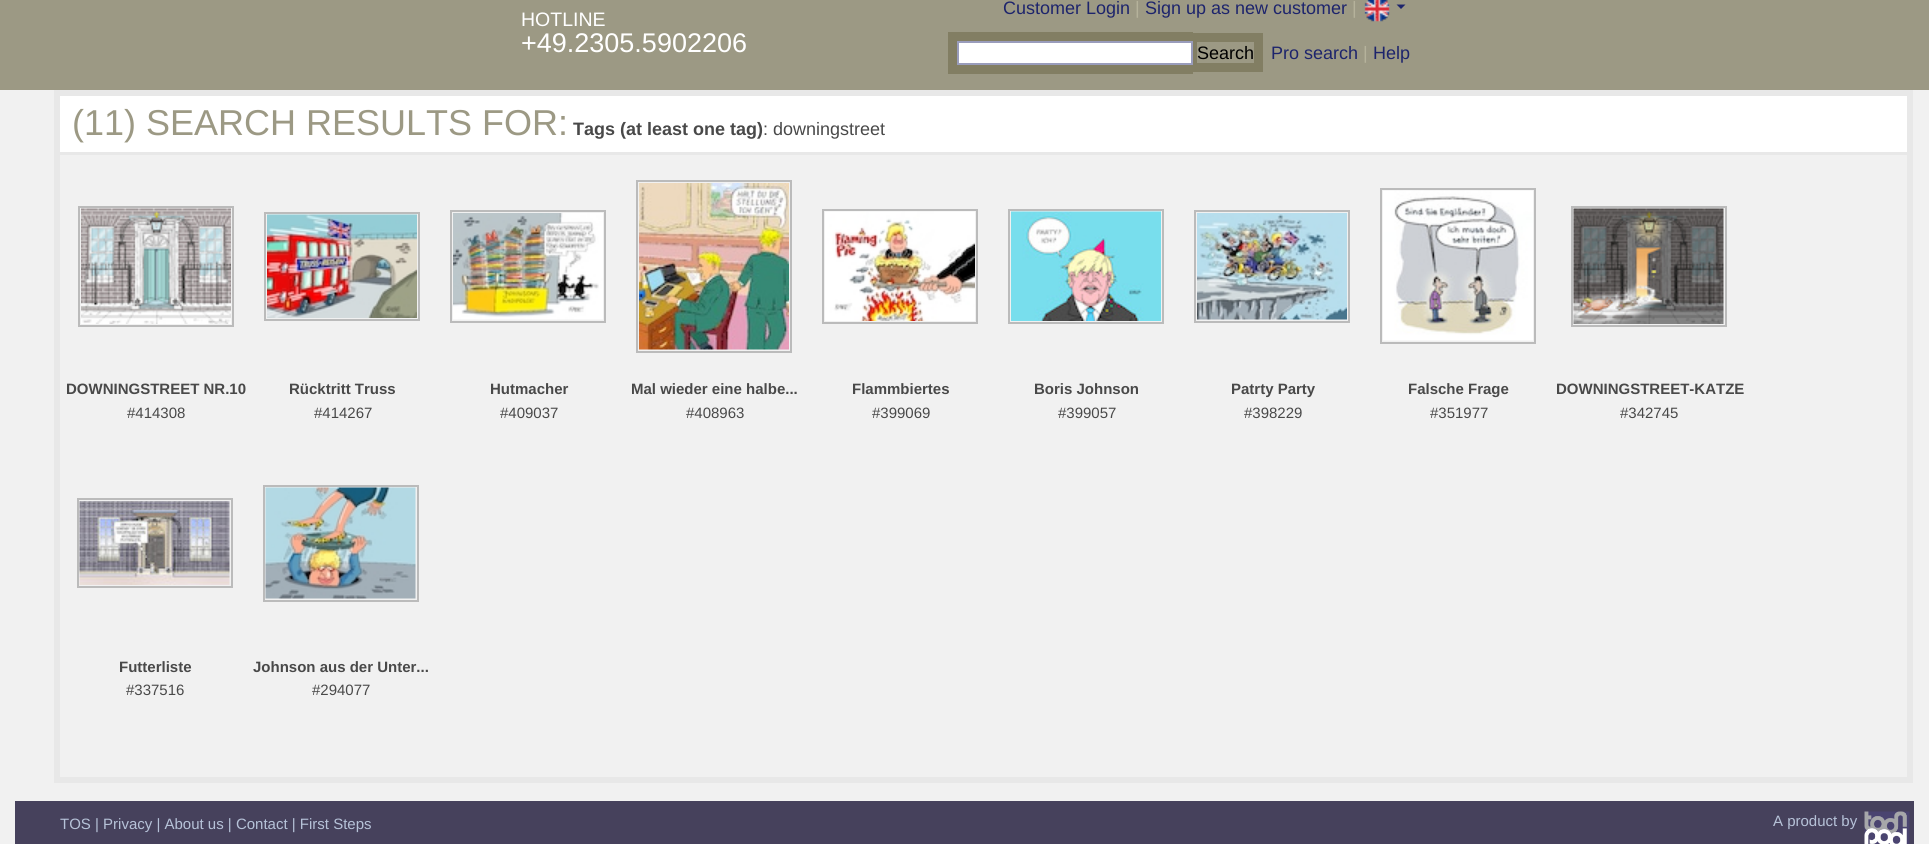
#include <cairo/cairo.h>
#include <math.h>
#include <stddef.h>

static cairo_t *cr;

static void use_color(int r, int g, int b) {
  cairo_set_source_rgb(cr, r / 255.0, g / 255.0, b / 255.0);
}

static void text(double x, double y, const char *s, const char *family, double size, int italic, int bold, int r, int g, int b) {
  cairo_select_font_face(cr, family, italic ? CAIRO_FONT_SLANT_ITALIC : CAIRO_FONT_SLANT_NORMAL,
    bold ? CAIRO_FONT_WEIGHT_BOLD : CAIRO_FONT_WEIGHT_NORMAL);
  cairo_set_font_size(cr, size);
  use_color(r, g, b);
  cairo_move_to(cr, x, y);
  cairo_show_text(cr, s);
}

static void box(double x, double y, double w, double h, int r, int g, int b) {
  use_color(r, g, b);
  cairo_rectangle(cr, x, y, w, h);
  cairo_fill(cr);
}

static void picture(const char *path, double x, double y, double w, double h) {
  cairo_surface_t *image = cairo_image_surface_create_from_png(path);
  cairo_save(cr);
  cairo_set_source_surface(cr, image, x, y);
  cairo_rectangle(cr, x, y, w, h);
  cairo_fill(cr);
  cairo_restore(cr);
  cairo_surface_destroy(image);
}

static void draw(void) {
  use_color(241, 241, 241);
  cairo_paint(cr);
  box(0, 0, 1929, 90, 156, 153, 132);
  picture("img_01.png", 1364, 0, 26, 22);
  use_color(29, 36, 108);
  cairo_new_path(cr);
  cairo_move_to(cr, 1396.5, 4.5);
  cairo_line_to(cr, 1405.5, 4.5);
  cairo_line_to(cr, 1401, 9);
  cairo_close_path(cr);
  cairo_fill(cr);
  box(948, 32, 245, 42, 130, 126, 99);
  box(1193, 33, 70, 39, 130, 126, 99);
  use_color(255, 255, 255);
  cairo_rectangle(cr, 958, 42, 234, 22);
  cairo_fill_preserve(cr);
  use_color(153, 156, 187);
  cairo_stroke(cr);
  box(1197, 42, 57, 21, 156, 153, 132);
  cairo_rectangle(cr, 57, 93, 1853, 687);
  use_color(232, 232, 232);
  cairo_set_line_width(cr, 6);
  cairo_stroke(cr);
  box(60, 96, 1847, 56, 255, 255, 255);
  box(60, 152, 1847, 3, 232, 232, 232);
  cairo_rectangle(cr, 79, 207, 154, 119);
  use_color(187, 187, 187);
  cairo_set_line_width(cr, 2);
  cairo_stroke(cr);
  picture("img_02.png", 81, 208, 150, 116);
  cairo_rectangle(cr, 265, 213, 154, 107);
  cairo_stroke(cr);
  picture("img_03.png", 267, 214, 150, 104);
  cairo_rectangle(cr, 451, 211, 154, 111);
  cairo_stroke(cr);
  picture("img_04.png", 453, 213, 150, 107);
  cairo_rectangle(cr, 637, 181, 154, 171);
  cairo_stroke(cr);
  picture("img_05.png", 639, 183, 150, 167);
  cairo_rectangle(cr, 823, 210, 154, 113);
  cairo_stroke(cr);
  picture("img_06.png", 825, 211, 150, 110);
  cairo_rectangle(cr, 1009, 210, 154, 113);
  cairo_stroke(cr);
  picture("img_07.png", 1011, 211, 150, 110);
  cairo_rectangle(cr, 1195, 211, 154, 111);
  cairo_stroke(cr);
  picture("img_08.png", 1197, 213, 150, 107);
  cairo_rectangle(cr, 1381, 189, 154, 154);
  cairo_stroke(cr);
  picture("img_09.png", 1383, 190, 150, 151);
  cairo_rectangle(cr, 1572, 207, 154, 119);
  cairo_stroke(cr);
  picture("img_10.png", 1573, 208, 151, 116);
  cairo_rectangle(cr, 78, 499, 154, 88);
  cairo_stroke(cr);
  picture("img_11.png", 79, 501, 151, 84);
  cairo_rectangle(cr, 264, 486, 154, 115);
  cairo_stroke(cr);
  picture("img_12.png", 265, 487, 151, 112);
  box(15, 801, 1899, 43, 70, 65, 92);
  picture("img_13.png", 1864, 811, 46, 33);
  text(1003, 14, "Customer Login", "Liberation Sans", 18, 0, 0, 29, 36, 108);
  text(1135, 14, "|", "Liberation Sans", 18, 0, 0, 181, 178, 155);
  text(1145, 14, "Sign up as new customer", "Liberation Sans", 18, 0, 0, 29, 36, 108);
  text(1352, 14, "|", "Liberation Sans", 18, 0, 0, 181, 178, 155);
  text(521, 26, "HOTLINE", "Liberation Sans", 19.5, 0, 0, 255, 255, 255);
  text(521, 52, "+49.2305.5902206", "Liberation Sans", 27, 0, 0, 255, 255, 255);
  text(1197, 59, "Search", "Liberation Sans", 18, 0, 0, 0, 0, 0);
  text(1271, 59, "Pro search", "Liberation Sans", 18, 0, 0, 29, 36, 108);
  text(1363, 59, "|", "Liberation Sans", 18, 0, 0, 181, 178, 155);
  text(1373, 59, "Help", "Liberation Sans", 18, 0, 0, 29, 36, 108);
  text(72, 135, "(11) SEARCH RESULTS FOR:", "Liberation Sans", 36, 0, 0, 156, 153, 132);
  text(573, 135, "Tags (at least one tag)", "Liberation Sans", 18, 0, 1, 73, 73, 73);
  text(763, 135, ": downingstreet", "Liberation Sans", 18, 0, 0, 73, 73, 73);
  text(66, 394, "DOWNINGSTREET NR.10", "Liberation Sans", 15, 0, 1, 73, 73, 73);
  text(127, 418, "#414308", "Liberation Sans", 15, 0, 0, 73, 73, 73);
  text(289, 394, "Rücktritt Truss", "Liberation Sans", 15, 0, 1, 73, 73, 73);
  text(314, 418, "#414267", "Liberation Sans", 15, 0, 0, 73, 73, 73);
  text(490, 394, "Hutmacher", "Liberation Sans", 15, 0, 1, 73, 73, 73);
  text(500, 418, "#409037", "Liberation Sans", 15, 0, 0, 73, 73, 73);
  text(631, 394, "Mal wieder eine halbe...", "Liberation Sans", 15, 0, 1, 73, 73, 73);
  text(686, 418, "#408963", "Liberation Sans", 15, 0, 0, 73, 73, 73);
  text(852, 394, "Flammbiertes", "Liberation Sans", 15, 0, 1, 73, 73, 73);
  text(872, 418, "#399069", "Liberation Sans", 15, 0, 0, 73, 73, 73);
  text(1034, 394, "Boris Johnson", "Liberation Sans", 15, 0, 1, 73, 73, 73);
  text(1058, 418, "#399057", "Liberation Sans", 15, 0, 0, 73, 73, 73);
  text(1231, 394, "Patrty Party", "Liberation Sans", 15, 0, 1, 73, 73, 73);
  text(1244, 418, "#398229", "Liberation Sans", 15, 0, 0, 73, 73, 73);
  text(1408, 394, "Falsche Frage", "Liberation Sans", 15, 0, 1, 73, 73, 73);
  text(1430, 418, "#351977", "Liberation Sans", 15, 0, 0, 73, 73, 73);
  text(1556, 394, "DOWNINGSTREET-KATZE", "Liberation Sans", 15, 0, 1, 73, 73, 73);
  text(1620, 418, "#342745", "Liberation Sans", 15, 0, 0, 73, 73, 73);
  text(119, 672, "Futterliste", "Liberation Sans", 15, 0, 1, 73, 73, 73);
  text(126, 695, "#337516", "Liberation Sans", 15, 0, 0, 73, 73, 73);
  text(253, 672, "Johnson aus der Unter...", "Liberation Sans", 15, 0, 1, 73, 73, 73);
  text(312, 695, "#294077", "Liberation Sans", 15, 0, 0, 73, 73, 73);
  text(60, 829, "TOS | Privacy | About us | Contact | First Steps", "Liberation Sans", 15, 0, 0, 182, 194, 216);
  text(1773, 826, "A product by", "Liberation Sans", 15, 0, 0, 182, 194, 216);
}

int main(void) {
  cairo_surface_t *surface = cairo_image_surface_create(CAIRO_FORMAT_RGB24, 1929, 844);
  cr = cairo_create(surface);
  cairo_font_options_t *options = cairo_font_options_create();
  cairo_font_options_set_hint_metrics(options, CAIRO_HINT_METRICS_OFF);
  cairo_font_options_set_hint_style(options, CAIRO_HINT_STYLE_NONE);
  cairo_set_font_options(cr, options);
  cairo_set_miter_limit(cr, 4);
  draw();
  cairo_surface_write_to_png(surface, "out.png");
  cairo_font_options_destroy(options);
  cairo_destroy(cr);
  cairo_surface_destroy(surface);
  return 0;
}
